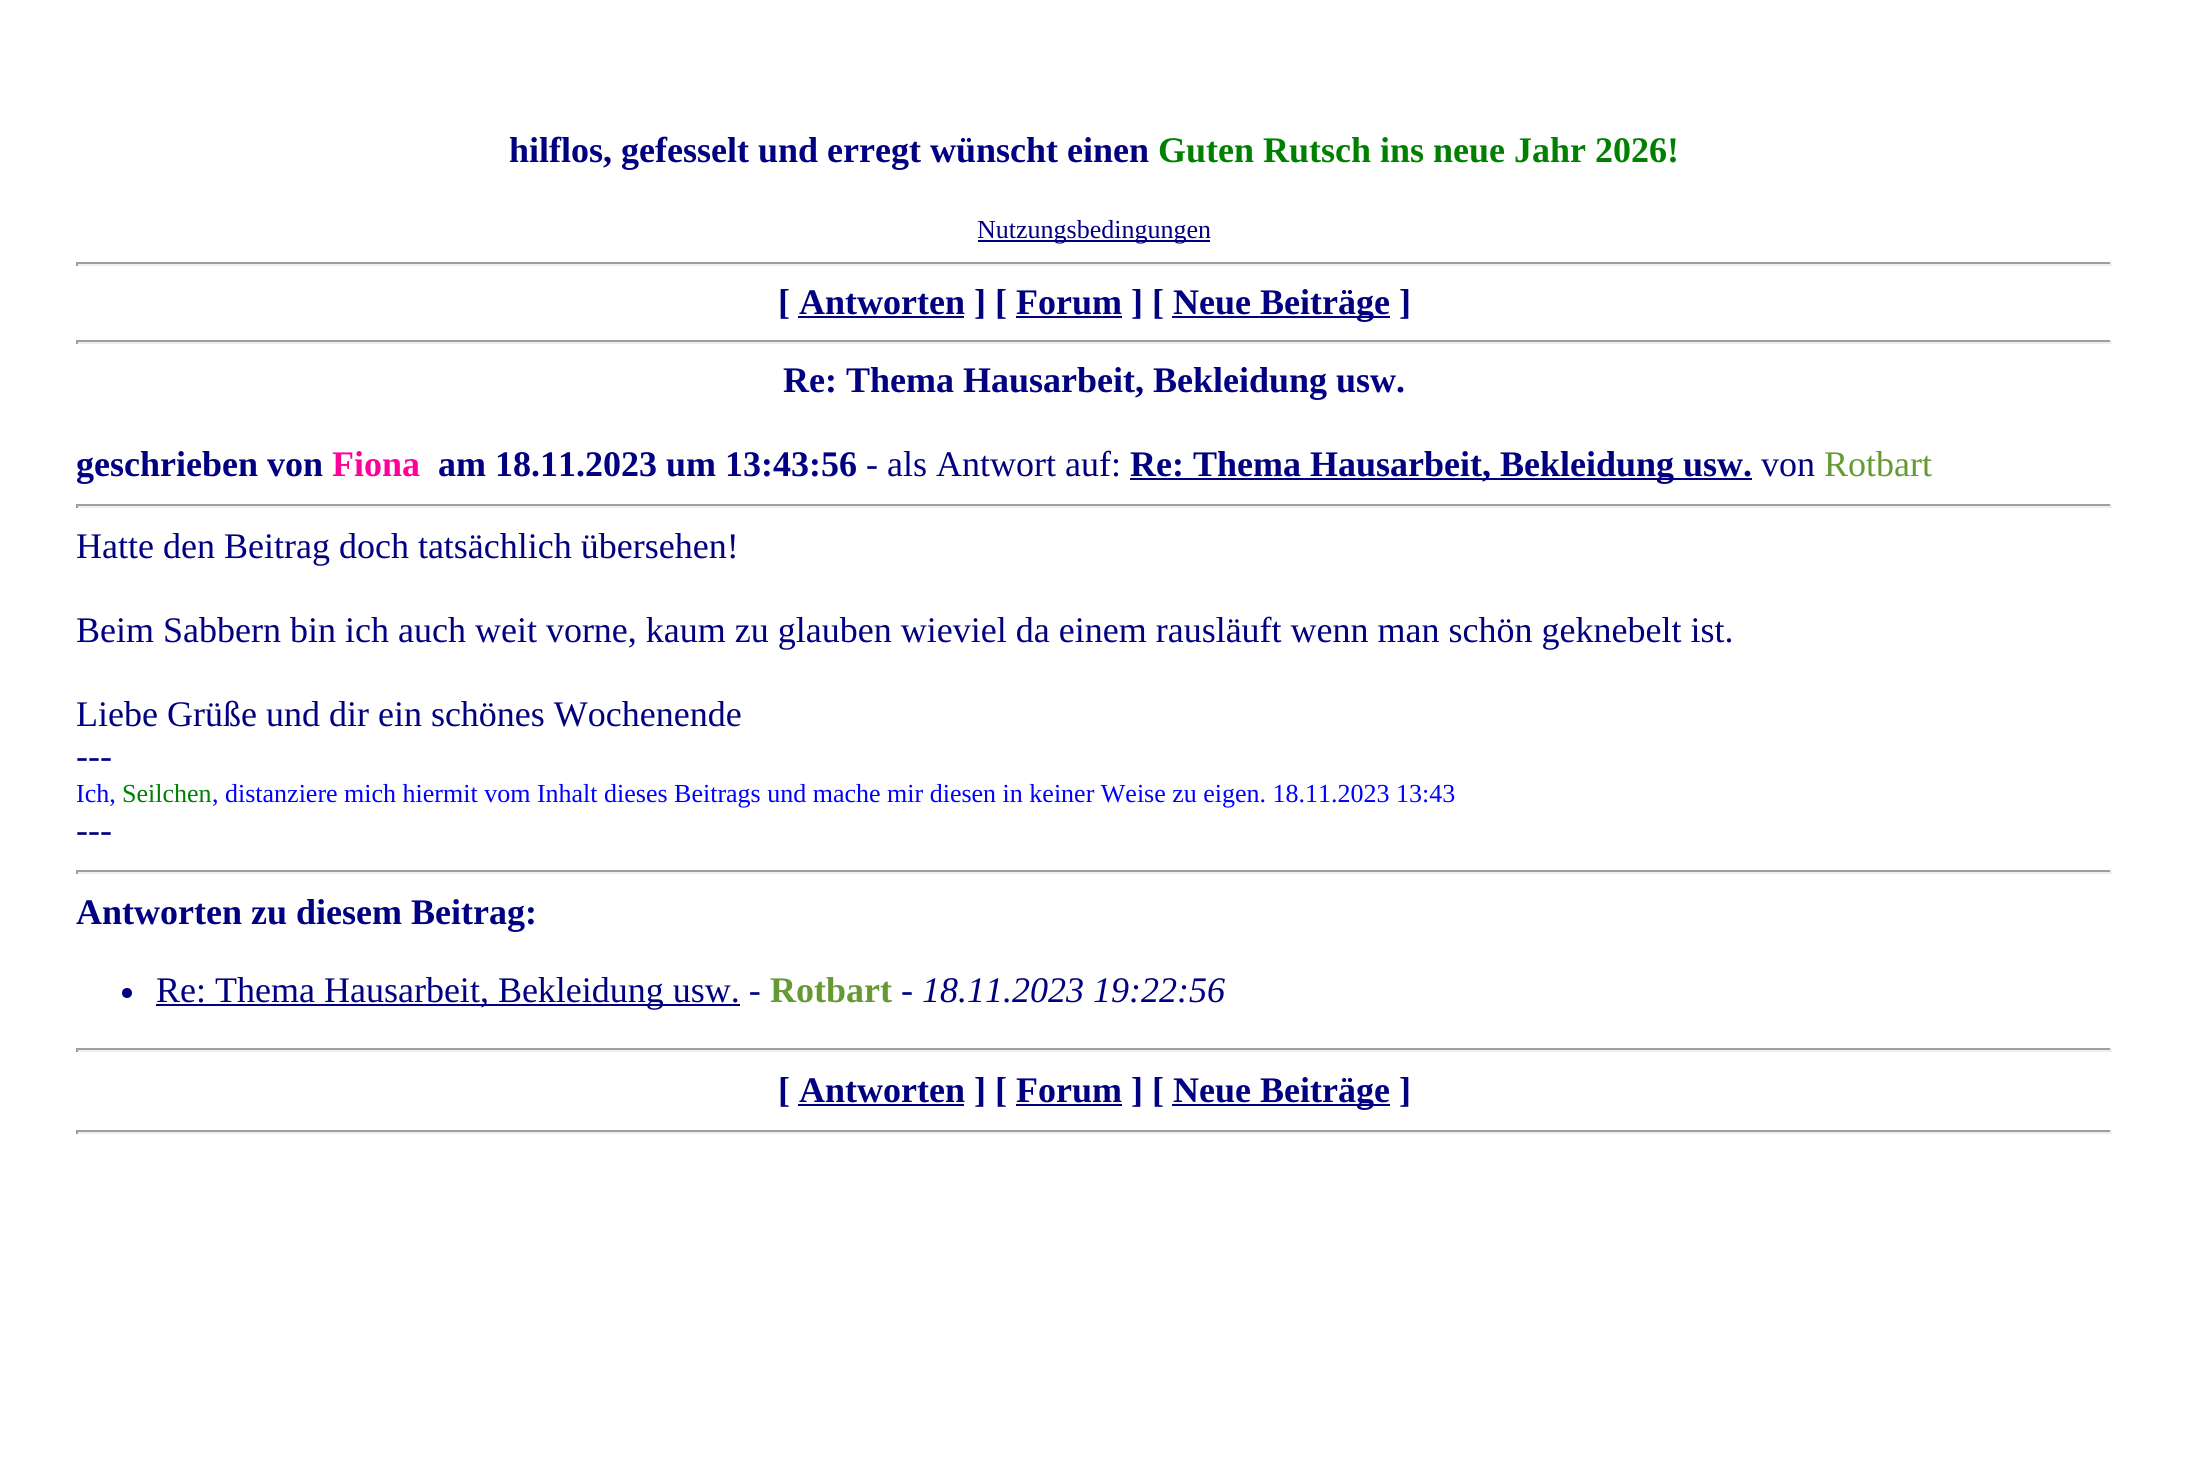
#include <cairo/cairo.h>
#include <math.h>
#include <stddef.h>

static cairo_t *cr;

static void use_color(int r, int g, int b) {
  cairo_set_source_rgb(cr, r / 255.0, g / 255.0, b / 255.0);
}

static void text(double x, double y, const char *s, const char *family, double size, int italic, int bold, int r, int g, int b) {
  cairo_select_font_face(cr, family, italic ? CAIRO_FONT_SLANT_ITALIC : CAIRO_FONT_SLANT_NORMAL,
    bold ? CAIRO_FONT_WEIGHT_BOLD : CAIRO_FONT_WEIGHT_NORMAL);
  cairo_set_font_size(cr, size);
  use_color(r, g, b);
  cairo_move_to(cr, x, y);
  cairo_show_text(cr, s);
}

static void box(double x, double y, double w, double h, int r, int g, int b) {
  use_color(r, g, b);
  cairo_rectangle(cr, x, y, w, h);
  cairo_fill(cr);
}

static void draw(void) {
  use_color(255, 255, 255);
  cairo_paint(cr);
  box(978, 240, 232, 2, 0, 0, 128);
  box(76, 262, 2036, 2, 159, 159, 159);
  box(2110, 262, 2, 4, 238, 238, 238);
  box(76, 264, 2036, 2, 238, 238, 238);
  box(76, 262, 2, 4, 159, 159, 159);
  box(798, 316, 166, 2, 0, 0, 128);
  box(1016, 316, 106, 2, 0, 0, 128);
  box(1172, 316, 218, 2, 0, 0, 128);
  box(76, 340, 2036, 2, 159, 159, 159);
  box(2110, 340, 2, 4, 238, 238, 238);
  box(76, 342, 2036, 2, 238, 238, 238);
  box(76, 340, 2, 4, 159, 159, 159);
  box(1130, 478, 622, 2, 0, 0, 128);
  box(76, 504, 2036, 2, 159, 159, 159);
  box(2110, 504, 2, 4, 238, 238, 238);
  box(76, 506, 2036, 2, 238, 238, 238);
  box(76, 504, 2, 4, 159, 159, 159);
  box(76, 870, 2036, 2, 159, 159, 159);
  box(2110, 870, 2, 4, 238, 238, 238);
  box(76, 872, 2036, 2, 238, 238, 238);
  box(76, 870, 2, 4, 159, 159, 159);
  use_color(0, 0, 128);
  cairo_arc(cr, 127, 993, 5, 0, 2 * M_PI);
  cairo_fill(cr);
  box(156, 1004, 584, 2, 0, 0, 128);
  box(76, 1048, 2036, 2, 159, 159, 159);
  box(2110, 1048, 2, 4, 238, 238, 238);
  box(76, 1050, 2036, 2, 238, 238, 238);
  box(76, 1048, 2, 4, 159, 159, 159);
  box(798, 1104, 166, 2, 0, 0, 128);
  box(1016, 1104, 106, 2, 0, 0, 128);
  box(1172, 1104, 218, 2, 0, 0, 128);
  box(76, 1130, 2036, 2, 159, 159, 159);
  box(2110, 1130, 2, 4, 238, 238, 238);
  box(76, 1132, 2036, 2, 238, 238, 238);
  box(76, 1130, 2, 4, 159, 159, 159);
  text(509, 162, "hilflos, gefesselt und erregt wünscht einen", "Liberation Serif", 36, 0, 1, 0, 0, 128);
  text(1158, 162, "Guten Rutsch ins neue Jahr 2026!", "Liberation Serif", 36, 0, 1, 0, 128, 0);
  text(977, 238, "Nutzungsbedingungen", "Liberation Serif", 26, 0, 0, 0, 0, 128);
  text(778, 314, "[ Antworten ] [ Forum ] [", "Liberation Serif", 36, 0, 1, 0, 0, 128);
  text(1173, 314, "Neue Beiträge ]", "Liberation Serif", 36, 0, 1, 0, 0, 128);
  text(783, 392, "Re: Thema Hausarbeit, Bekleidung usw.", "Liberation Serif", 36, 0, 1, 0, 0, 128);
  text(76, 476, "geschrieben von", "Liberation Serif", 36, 0, 1, 0, 0, 128);
  text(332, 476, "Fiona", "Liberation Serif", 36, 0, 1, 255, 0, 153);
  text(438, 476, "am 18.11.2023 um 13:43:56", "Liberation Serif", 36, 0, 1, 0, 0, 128);
  text(866, 476, "- als Antwort auf:", "Liberation Serif", 36, 0, 0, 0, 0, 128);
  text(1130, 476, "Re: Thema Hausarbeit, Bekleidung usw.", "Liberation Serif", 36, 0, 1, 0, 0, 128);
  text(1761, 476, "von", "Liberation Serif", 36, 0, 0, 0, 0, 128);
  text(1824, 476, "Rotbart", "Liberation Serif", 36, 0, 0, 102, 153, 51);
  text(76, 558, "Hatte den Beitrag doch tatsächlich übersehen!", "Liberation Serif", 36, 0, 0, 0, 0, 128);
  text(76, 642, "Beim Sabbern bin ich auch weit vorne, kaum zu glauben wieviel da einem rausläuft wenn man schön geknebelt ist.", "Liberation Serif", 36, 0, 0, 0, 0, 128);
  text(76, 726, "Liebe Grüße und dir ein schönes Wochenende", "Liberation Serif", 36, 0, 0, 0, 0, 128);
  text(76, 768, "---", "Liberation Serif", 36, 0, 0, 0, 0, 128);
  text(76, 802, "Ich,", "Liberation Serif", 26, 0, 0, 0, 0, 255);
  text(122, 802, "Seilchen", "Liberation Serif", 26, 0, 0, 0, 128, 0);
  text(212, 802, ", distanziere mich hiermit vom Inhalt dieses Beitrags und mache mir diesen in keiner Weise zu eigen. 18.11.2023 13:43", "Liberation Serif", 26, 0, 0, 0, 0, 255);
  text(76, 842, "---", "Liberation Serif", 36, 0, 0, 0, 0, 128);
  text(76, 924, "Antworten zu diesem Beitrag:", "Liberation Serif", 36, 0, 1, 0, 0, 128);
  text(156, 1002, "Re: Thema Hausarbeit, Bekleidung usw. -", "Liberation Serif", 36, 0, 0, 0, 0, 128);
  text(770, 1002, "Rotbart", "Liberation Serif", 36, 0, 1, 102, 153, 51);
  text(901, 1002, "-", "Liberation Serif", 36, 0, 0, 0, 0, 128);
  text(922, 1002, "18.11.2023 19:22:56", "Liberation Serif", 36, 1, 0, 0, 0, 128);
  text(778, 1102, "[ Antworten ] [ Forum ] [", "Liberation Serif", 36, 0, 1, 0, 0, 128);
  text(1173, 1102, "Neue Beiträge ]", "Liberation Serif", 36, 0, 1, 0, 0, 128);
}

int main(void) {
  cairo_surface_t *surface = cairo_image_surface_create(CAIRO_FORMAT_RGB24, 2188, 1461);
  cr = cairo_create(surface);
  cairo_font_options_t *options = cairo_font_options_create();
  cairo_font_options_set_hint_metrics(options, CAIRO_HINT_METRICS_OFF);
  cairo_font_options_set_hint_style(options, CAIRO_HINT_STYLE_NONE);
  cairo_set_font_options(cr, options);
  cairo_set_miter_limit(cr, 4);
  draw();
  cairo_surface_write_to_png(surface, "out.png");
  cairo_font_options_destroy(options);
  cairo_destroy(cr);
  cairo_surface_destroy(surface);
  return 0;
}
